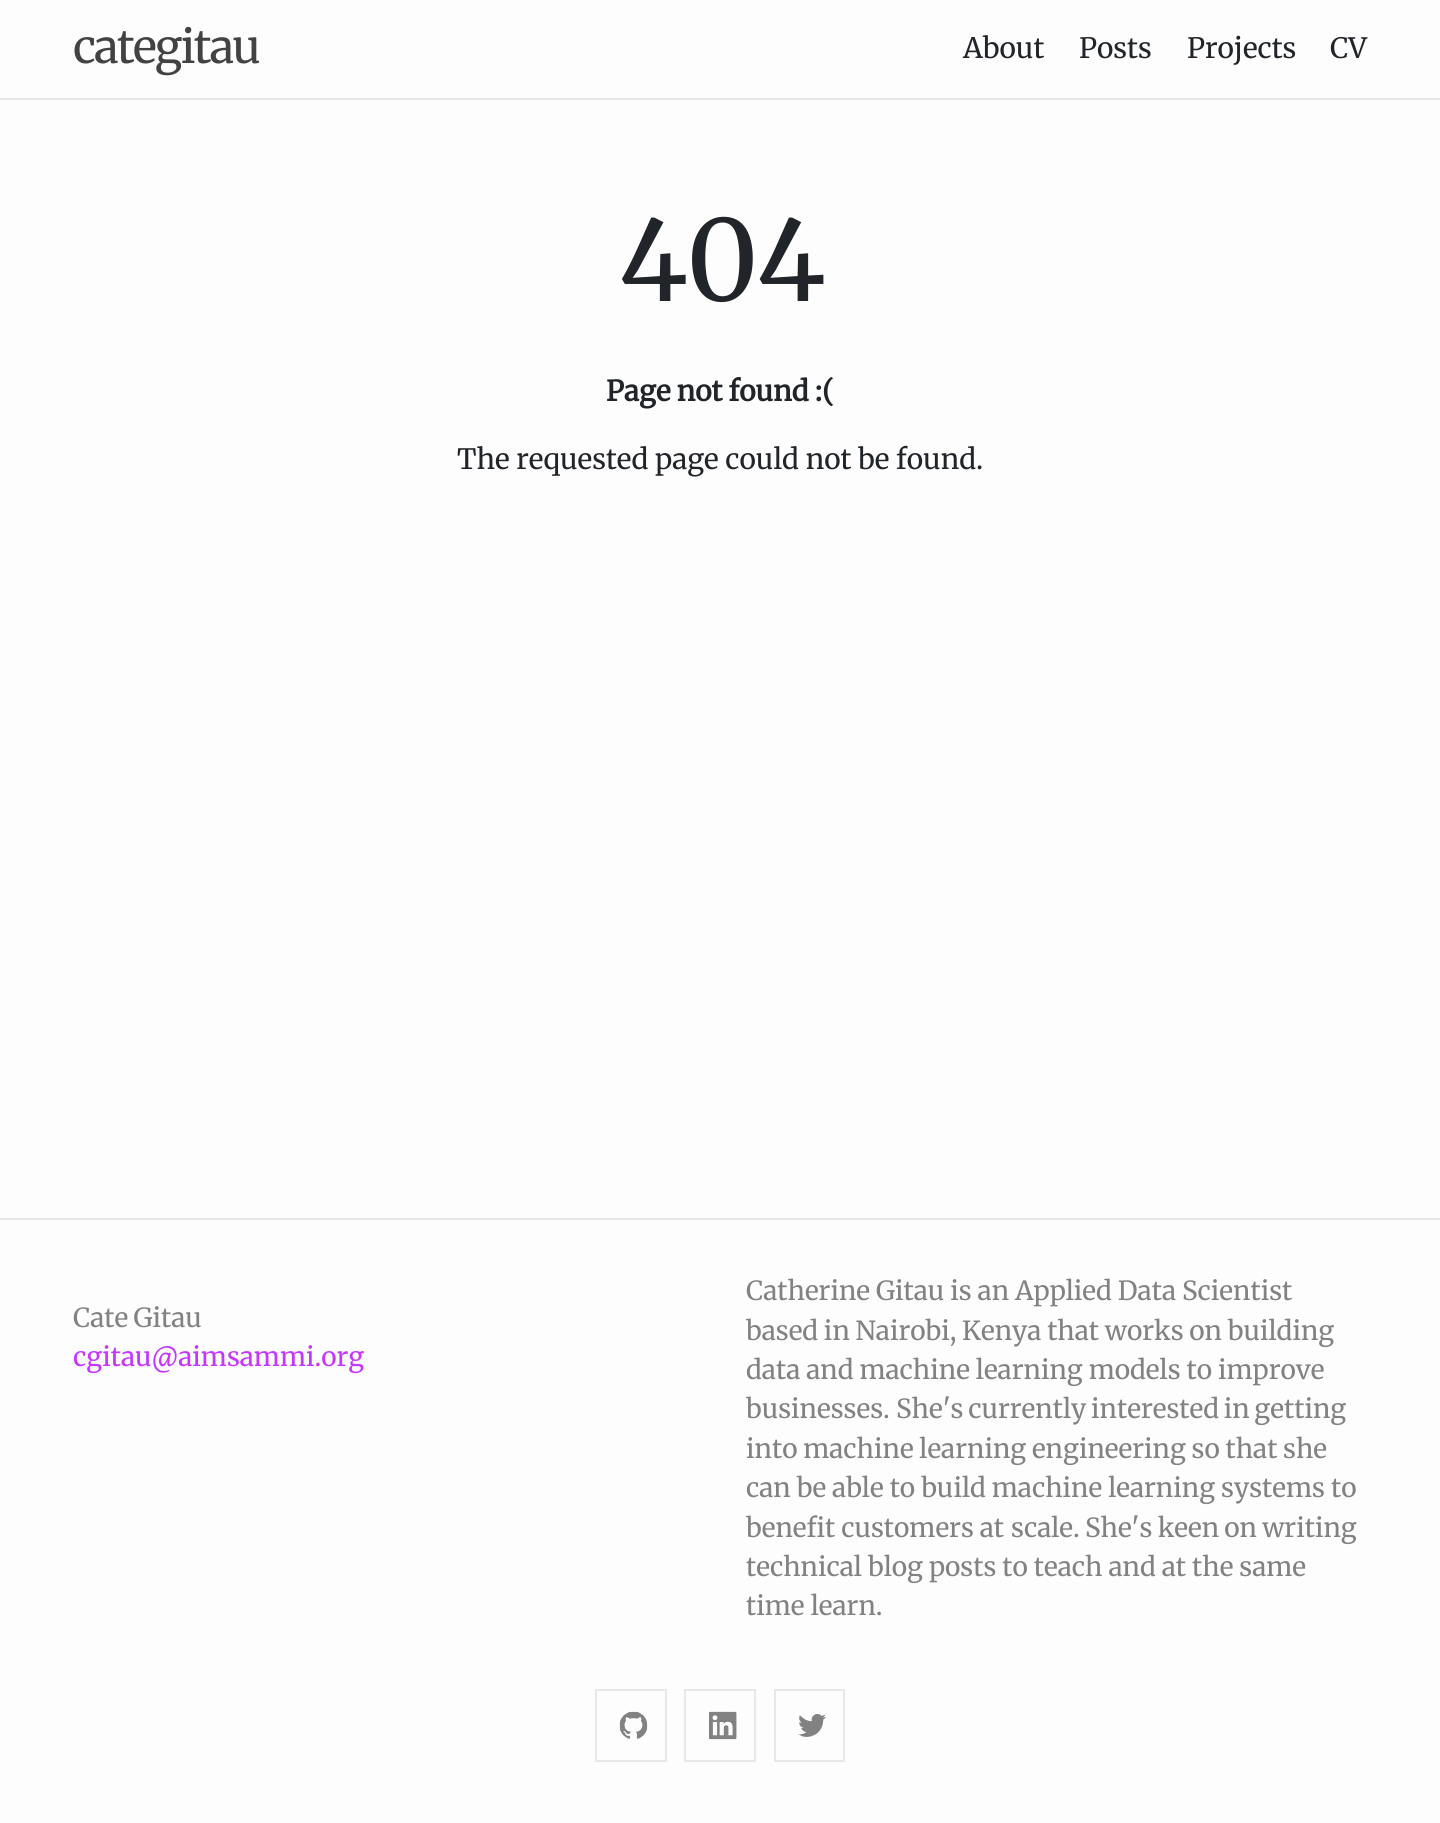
#include <cairo/cairo.h>
#include <math.h>
#include <stddef.h>

static cairo_t *cr;

static void use_color(int r, int g, int b) {
  cairo_set_source_rgb(cr, r / 255.0, g / 255.0, b / 255.0);
}

static void text(double x, double y, const char *s, const char *family, double size, int italic, int bold, int r, int g, int b) {
  cairo_select_font_face(cr, family, italic ? CAIRO_FONT_SLANT_ITALIC : CAIRO_FONT_SLANT_NORMAL,
    bold ? CAIRO_FONT_WEIGHT_BOLD : CAIRO_FONT_WEIGHT_NORMAL);
  cairo_set_font_size(cr, size);
  use_color(r, g, b);
  cairo_move_to(cr, x, y);
  cairo_show_text(cr, s);
}

static void spaced_text(double x, double y, const char *s, double letter, double word) {
  cairo_move_to(cr, x, y);
  while (*s) {
    char ch[5] = {0};
    int n = 0;
    do ch[n++] = *s++; while ((*s & 0xC0) == 0x80);
    cairo_show_text(cr, ch);
    cairo_rel_move_to(cr, letter + word * (*ch == ' '), 0);
  }
}

static void box(double x, double y, double w, double h, int r, int g, int b) {
  use_color(r, g, b);
  cairo_rectangle(cr, x, y, w, h);
  cairo_fill(cr);
}

static void picture(const char *path, double x, double y, double w, double h) {
  cairo_surface_t *image = cairo_image_surface_create_from_png(path);
  cairo_save(cr);
  cairo_set_source_surface(cr, image, x, y);
  cairo_rectangle(cr, x, y, w, h);
  cairo_fill(cr);
  cairo_restore(cr);
  cairo_surface_destroy(image);
}

static void draw(void) {
  use_color(253, 253, 253);
  cairo_paint(cr);
  box(0, 98, 1440, 2, 232, 232, 232);
  box(0, 1218, 1440, 2, 232, 232, 232);
  cairo_rectangle(cr, 596, 1690, 70, 71);
  cairo_stroke(cr);
  picture("img_01.png", 619, 1711, 29, 28);
  cairo_rectangle(cr, 685, 1690, 70, 71);
  cairo_stroke(cr);
  picture("img_02.png", 709, 1711, 28, 29);
  cairo_rectangle(cr, 775, 1690, 69, 71);
  cairo_stroke(cr);
  picture("img_03.png", 798, 1714, 28, 23);
  cairo_select_font_face(cr, "Merriweather Light", CAIRO_FONT_SLANT_NORMAL, CAIRO_FONT_WEIGHT_NORMAL);
  cairo_set_font_size(cr, 45.5);
  use_color(66, 66, 66);
  spaced_text(73, 63, "categitau", -1.75, 0);
  text(963, 58, "About", "Merriweather Light", 28, 0, 0, 33, 37, 41);
  text(1079, 58, "Posts", "Merriweather Light", 28, 0, 0, 33, 37, 41);
  text(1187, 58, "Projects", "Merriweather Light", 28, 0, 0, 33, 37, 41);
  text(1330, 58, "CV", "Merriweather Light", 28, 0, 0, 33, 37, 41);
  cairo_set_font_size(cr, 112);
  spaced_text(619, 301, "404", -1.75, 0);
  cairo_select_font_face(cr, "Merriweather", CAIRO_FONT_SLANT_NORMAL, CAIRO_FONT_WEIGHT_BOLD);
  cairo_set_font_size(cr, 28);
  spaced_text(606, 401, "Page not found :(", 0, -0.5);
  text(457, 469, "The requested page could not be found.", "Merriweather Light", 28, 0, 0, 33, 37, 41);
  cairo_set_font_size(cr, 26.25);
  use_color(130, 130, 130);
  spaced_text(73, 1327, "Cate Gitau", 0, -1);
  text(73, 1366, "cgitau@aimsammi.org", "Merriweather Light", 26.25, 0, 0, 198, 54, 255);
  use_color(130, 130, 130);
  spaced_text(746, 1300, "Catherine Gitau is an Applied Data Scientist", 0, -0.25);
  spaced_text(746, 1340, "based in Nairobi, Kenya that works on building", 0, -0.5);
  spaced_text(746, 1379, "data and machine learning models to improve", 0, -0.25);
  text(746, 1418, "businesses.", "Merriweather Light", 26.25, 0, 0, 130, 130, 130);
  spaced_text(896, 1418, "She's currently interested in getting", 0, -1.5);
  spaced_text(746, 1458, "into machine learning engineering so that she", 0, -0.5);
  spaced_text(746, 1497, "can be able to build machine learning systems to", 0, -0.25);
  spaced_text(746, 1537, "benefit customers at", 0, -0.25);
  spaced_text(1011, 1537, "scale. She's keen on writing", 0, -1);
  spaced_text(746, 1576, "technical blog posts to teach and at the same", 0, -0.25);
  text(746, 1615, "time learn.", "Merriweather Light", 26.25, 0, 0, 130, 130, 130);
}

int main(void) {
  cairo_surface_t *surface = cairo_image_surface_create(CAIRO_FORMAT_RGB24, 1440, 1823);
  cr = cairo_create(surface);
  cairo_font_options_t *options = cairo_font_options_create();
  cairo_font_options_set_hint_metrics(options, CAIRO_HINT_METRICS_OFF);
  cairo_font_options_set_hint_style(options, CAIRO_HINT_STYLE_NONE);
  cairo_set_font_options(cr, options);
  cairo_set_miter_limit(cr, 4);
  draw();
  cairo_surface_write_to_png(surface, "out.png");
  cairo_font_options_destroy(options);
  cairo_destroy(cr);
  cairo_surface_destroy(surface);
  return 0;
}
